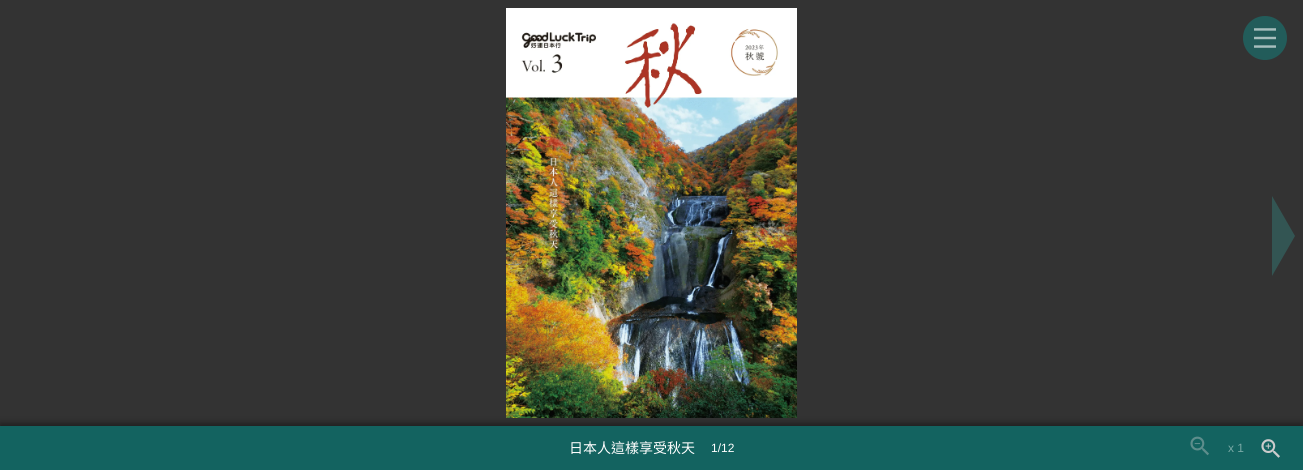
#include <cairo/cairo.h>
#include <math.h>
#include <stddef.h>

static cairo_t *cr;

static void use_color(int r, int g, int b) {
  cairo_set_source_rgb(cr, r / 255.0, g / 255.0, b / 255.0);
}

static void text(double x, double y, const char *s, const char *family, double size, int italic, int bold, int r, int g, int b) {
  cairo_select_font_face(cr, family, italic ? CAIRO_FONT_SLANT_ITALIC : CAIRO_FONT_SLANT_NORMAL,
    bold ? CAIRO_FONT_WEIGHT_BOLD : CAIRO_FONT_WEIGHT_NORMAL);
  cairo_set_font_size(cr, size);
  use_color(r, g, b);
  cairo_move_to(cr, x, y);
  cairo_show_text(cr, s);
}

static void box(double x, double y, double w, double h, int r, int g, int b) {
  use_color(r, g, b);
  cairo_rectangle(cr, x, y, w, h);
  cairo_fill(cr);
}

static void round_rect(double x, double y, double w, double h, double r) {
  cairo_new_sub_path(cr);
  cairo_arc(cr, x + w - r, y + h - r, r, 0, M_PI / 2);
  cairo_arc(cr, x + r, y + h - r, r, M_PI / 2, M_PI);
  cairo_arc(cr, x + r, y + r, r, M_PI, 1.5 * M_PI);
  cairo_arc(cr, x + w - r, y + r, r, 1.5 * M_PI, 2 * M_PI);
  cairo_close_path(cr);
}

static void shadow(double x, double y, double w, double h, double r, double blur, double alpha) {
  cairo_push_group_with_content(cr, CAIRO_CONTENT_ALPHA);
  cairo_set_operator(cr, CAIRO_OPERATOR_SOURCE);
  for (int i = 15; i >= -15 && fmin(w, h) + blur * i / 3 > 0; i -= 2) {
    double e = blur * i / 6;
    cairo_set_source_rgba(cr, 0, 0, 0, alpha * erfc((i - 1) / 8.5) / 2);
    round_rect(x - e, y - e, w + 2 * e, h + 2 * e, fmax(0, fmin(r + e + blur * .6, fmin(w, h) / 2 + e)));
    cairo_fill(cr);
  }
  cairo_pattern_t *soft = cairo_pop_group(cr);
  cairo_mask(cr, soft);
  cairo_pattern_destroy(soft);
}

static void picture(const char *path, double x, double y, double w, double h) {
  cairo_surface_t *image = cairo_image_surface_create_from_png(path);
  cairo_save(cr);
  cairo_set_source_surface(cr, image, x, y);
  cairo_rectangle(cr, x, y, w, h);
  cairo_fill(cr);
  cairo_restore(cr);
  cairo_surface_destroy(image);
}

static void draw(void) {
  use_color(51, 51, 51);
  cairo_paint(cr);
  use_color(34, 92, 90);
  cairo_arc(cr, 1265, 38, 22, 0, 2 * M_PI);
  cairo_fill(cr);
  picture("img_01.png", 1254, 28, 22, 20);
  picture("img_02.png", 506, 8, 291, 410);
  use_color(51, 85, 83);
  cairo_set_fill_rule(cr, CAIRO_FILL_RULE_EVEN_ODD);
  cairo_new_path(cr);
  cairo_move_to(cr, 1295, 236);
  cairo_line_to(cr, 1272, 276);
  cairo_line_to(cr, 1272, 196);
  cairo_close_path(cr);
  cairo_fill(cr);
  use_color(0, 0, 0);
  shadow(0, 424, 1303, 44, 0, 4, 0.5);
  box(0, 426, 1303, 44, 19, 99, 96);
  picture("img_03.png", 1190, 436, 19, 20);
  picture("img_04.png", 1261, 439, 19, 19);
  text(569, 453, "日本人這樣享受秋天", "Noto Sans CJK TC", 14, 0, 0, 255, 255, 255);
  text(711, 452, "1/12", "Liberation Sans", 12, 0, 0, 255, 255, 255);
  text(1228, 452, "x 1", "Liberation Sans", 12, 0, 0, 121, 169, 166);
}

int main(void) {
  cairo_surface_t *surface = cairo_image_surface_create(CAIRO_FORMAT_RGB24, 1303, 470);
  cr = cairo_create(surface);
  cairo_font_options_t *options = cairo_font_options_create();
  cairo_font_options_set_hint_metrics(options, CAIRO_HINT_METRICS_OFF);
  cairo_font_options_set_hint_style(options, CAIRO_HINT_STYLE_NONE);
  cairo_set_font_options(cr, options);
  cairo_set_miter_limit(cr, 4);
  draw();
  cairo_surface_write_to_png(surface, "out.png");
  cairo_font_options_destroy(options);
  cairo_destroy(cr);
  cairo_surface_destroy(surface);
  return 0;
}
